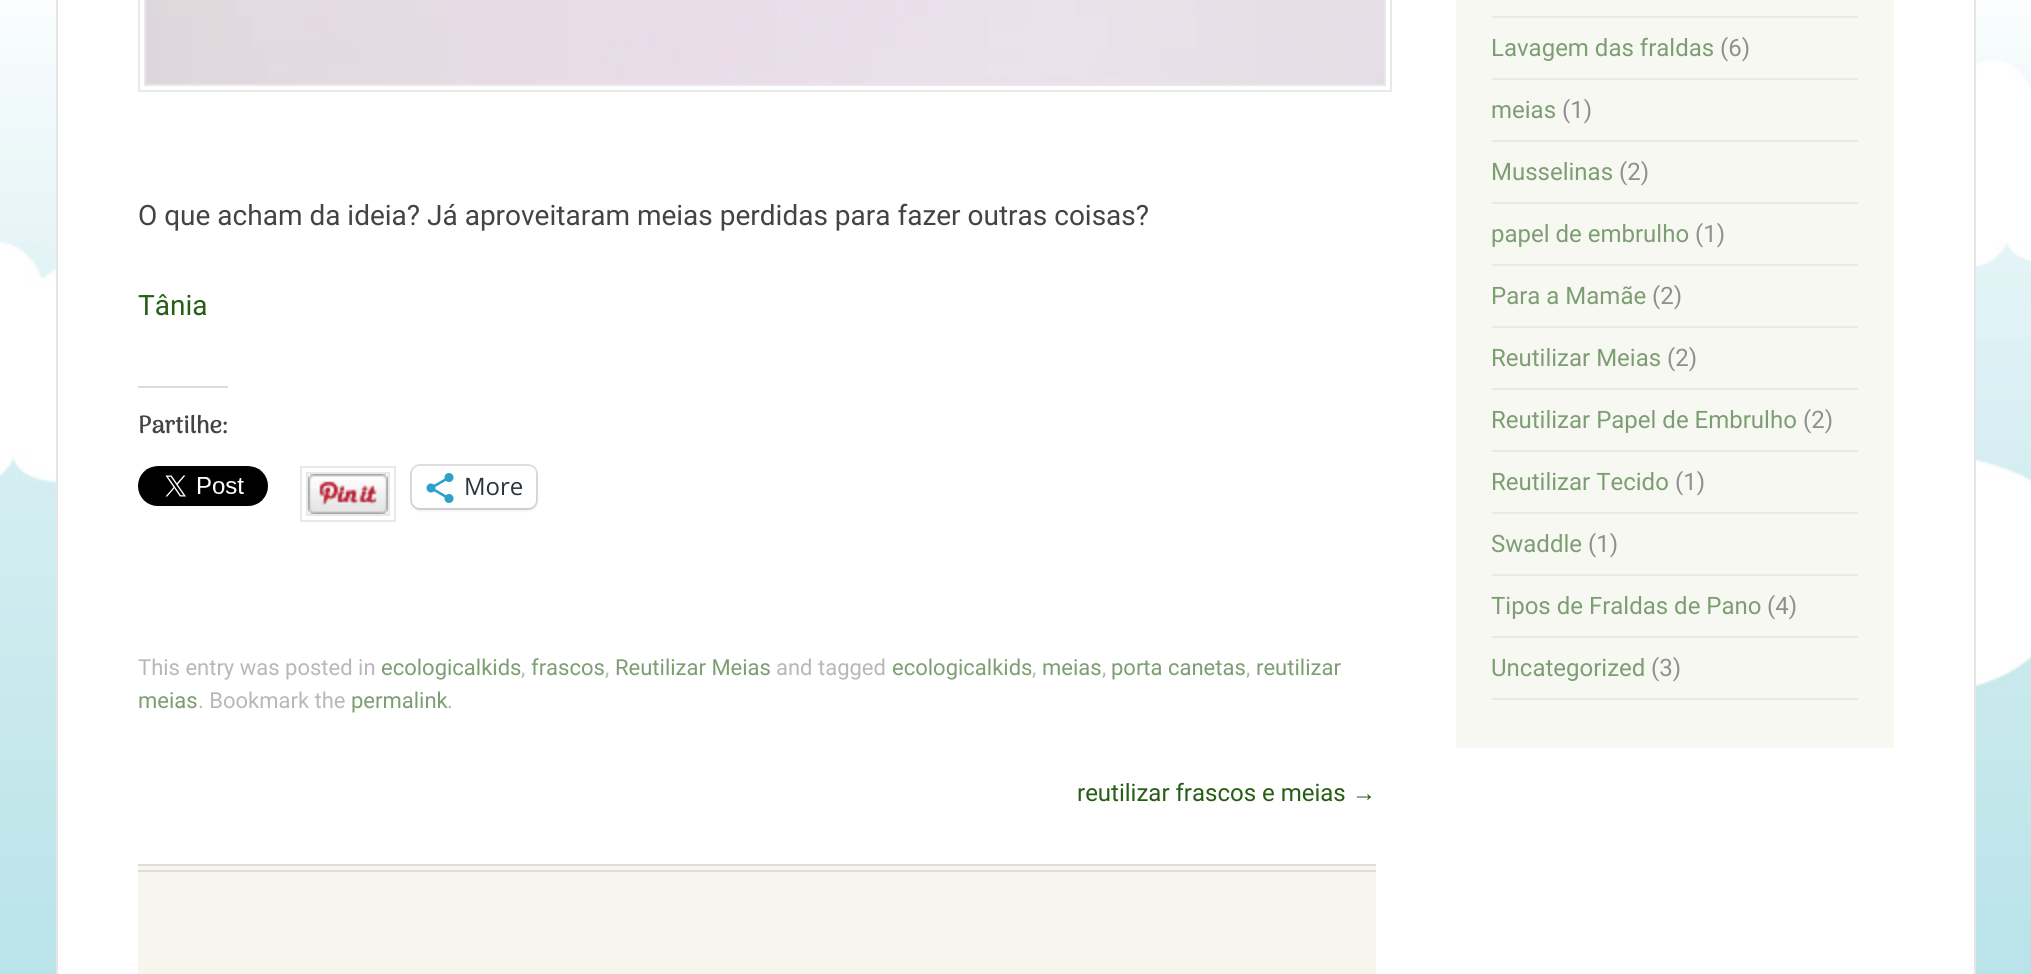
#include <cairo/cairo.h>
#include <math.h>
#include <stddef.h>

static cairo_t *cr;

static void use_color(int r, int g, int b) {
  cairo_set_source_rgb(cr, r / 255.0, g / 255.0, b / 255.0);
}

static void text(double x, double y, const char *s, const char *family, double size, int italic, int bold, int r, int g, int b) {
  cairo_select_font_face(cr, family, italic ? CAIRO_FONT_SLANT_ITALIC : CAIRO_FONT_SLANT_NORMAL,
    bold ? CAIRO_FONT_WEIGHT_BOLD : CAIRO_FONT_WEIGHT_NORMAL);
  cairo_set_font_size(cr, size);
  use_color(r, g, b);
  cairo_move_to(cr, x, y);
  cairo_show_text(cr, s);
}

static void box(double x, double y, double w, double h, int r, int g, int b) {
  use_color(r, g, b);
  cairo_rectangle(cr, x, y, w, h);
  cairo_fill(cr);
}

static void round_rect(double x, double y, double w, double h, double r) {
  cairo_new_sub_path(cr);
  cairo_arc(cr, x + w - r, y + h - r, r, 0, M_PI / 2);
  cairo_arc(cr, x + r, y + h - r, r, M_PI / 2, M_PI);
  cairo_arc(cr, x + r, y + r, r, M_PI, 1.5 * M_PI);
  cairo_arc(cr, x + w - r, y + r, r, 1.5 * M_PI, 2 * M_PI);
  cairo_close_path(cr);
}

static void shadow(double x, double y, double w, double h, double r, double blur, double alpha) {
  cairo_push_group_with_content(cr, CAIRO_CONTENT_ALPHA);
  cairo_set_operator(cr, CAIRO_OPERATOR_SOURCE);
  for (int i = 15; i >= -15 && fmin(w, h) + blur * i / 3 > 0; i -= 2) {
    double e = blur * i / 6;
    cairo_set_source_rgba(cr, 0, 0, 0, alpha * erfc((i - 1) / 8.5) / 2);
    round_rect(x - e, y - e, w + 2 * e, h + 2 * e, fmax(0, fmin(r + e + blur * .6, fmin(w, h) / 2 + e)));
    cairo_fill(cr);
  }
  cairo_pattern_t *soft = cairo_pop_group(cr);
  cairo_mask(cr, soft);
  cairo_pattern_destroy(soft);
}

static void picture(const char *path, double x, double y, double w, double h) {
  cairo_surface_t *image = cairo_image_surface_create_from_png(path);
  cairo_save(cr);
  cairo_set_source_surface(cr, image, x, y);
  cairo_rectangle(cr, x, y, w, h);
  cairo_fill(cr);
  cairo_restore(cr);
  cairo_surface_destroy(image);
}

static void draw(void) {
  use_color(255, 255, 255);
  cairo_paint(cr);
  picture("img_01.png", 0, 0, 2031, 974);
  use_color(255, 255, 255);
  cairo_rectangle(cr, 57, -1, 1918, 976);
  cairo_fill_preserve(cr);
  use_color(230, 230, 230);
  cairo_stroke(cr);
  cairo_rectangle(cr, 139, -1, 1252, 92);
  use_color(232, 232, 232);
  cairo_stroke(cr);
  cairo_rectangle(cr, 145, -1, 1240, 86);
  cairo_stroke(cr);
  picture("img_02.png", 146, 0, 1238, 84);
  box(138, 386, 90, 2, 220, 220, 222);
  picture("img_03.png", 138, 466, 130, 40);
  cairo_rectangle(cr, 301, 467, 94, 54);
  use_color(232, 232, 232);
  cairo_stroke(cr);
  cairo_rectangle(cr, 307, 473, 82, 42);
  cairo_stroke(cr);
  picture("img_04.png", 308, 474, 80, 40);
  round_rect(411, 465, 126, 44, 9);
  use_color(224, 224, 224);
  cairo_stroke(cr);
  use_color(0, 0, 0);
  shadow(412, 468, 124, 42, 8, 2, 0.12);
  use_color(255, 255, 255);
  round_rect(412, 466, 124, 42, 8);
  cairo_fill(cr);
  picture("img_05.png", 426, 473, 28, 30);
  box(138, 866, 1238, 108, 247, 246, 238);
  box(138, 864, 1238, 2, 222, 221, 214);
  box(138, 870, 1238, 2, 222, 221, 214);
  box(1456, 0, 438, 748, 248, 248, 243);
  box(1492, 16, 366, 2, 233, 233, 229);
  box(1492, 78, 366, 2, 233, 233, 229);
  box(1492, 140, 366, 2, 233, 233, 229);
  box(1492, 202, 366, 2, 233, 233, 229);
  box(1492, 264, 366, 2, 233, 233, 229);
  box(1492, 326, 366, 2, 233, 233, 229);
  box(1492, 388, 366, 2, 233, 233, 229);
  box(1492, 450, 366, 2, 233, 233, 229);
  box(1492, 512, 366, 2, 233, 233, 229);
  box(1492, 574, 366, 2, 233, 233, 229);
  box(1492, 636, 366, 2, 233, 233, 229);
  box(1492, 698, 366, 2, 233, 233, 229);
  text(138, 225, "O que acham da ideia? Já aproveitaram meias perdidas para fazer outras coisas?", "Roboto", 28, 0, 0, 68, 68, 68);
  text(138, 315, "Tânia", "Roboto", 28, 0, 0, 38, 94, 21);
  text(138, 433, "Partilhe:", "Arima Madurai", 24, 0, 1, 68, 68, 68);
  text(464, 495, "More", "Open Sans", 24, 0, 0, 44, 51, 56);
  text(138, 675, "This entry was posted in", "Roboto", 22, 0, 0, 184, 184, 184);
  text(381, 675, "ecologicalkids", "Roboto", 22, 0, 0, 125, 158, 115);
  text(521, 675, ",", "Roboto", 22, 0, 0, 184, 184, 184);
  text(531, 675, "frascos", "Roboto", 22, 0, 0, 125, 158, 115);
  text(605, 675, ",", "Roboto", 22, 0, 0, 184, 184, 184);
  text(615, 675, "Reutilizar Meias", "Roboto", 22, 0, 0, 125, 158, 115);
  text(776, 675, "and tagged", "Roboto", 22, 0, 0, 184, 184, 184);
  text(892, 675, "ecologicalkids", "Roboto", 22, 0, 0, 125, 158, 115);
  text(1032, 675, ",", "Roboto", 22, 0, 0, 184, 184, 184);
  text(1042, 675, "meias", "Roboto", 22, 0, 0, 125, 158, 115);
  text(1102, 675, ",", "Roboto", 22, 0, 0, 184, 184, 184);
  text(1111, 675, "porta canetas", "Roboto", 22, 0, 0, 125, 158, 115);
  text(1246, 675, ",", "Roboto", 22, 0, 0, 184, 184, 184);
  text(1256, 675, "reutilizar", "Roboto", 22, 0, 0, 125, 158, 115);
  text(138, 708, "meias", "Roboto", 22, 0, 0, 125, 158, 115);
  text(198, 708, ". Bookmark the", "Roboto", 22, 0, 0, 184, 184, 184);
  text(351, 708, "permalink", "Roboto", 22, 0, 0, 125, 158, 115);
  text(447, 708, ".", "Roboto", 22, 0, 0, 184, 184, 184);
  text(1077, 801, "reutilizar frascos e meias", "Roboto", 24, 0, 0, 38, 94, 21);
  text(1352, 801, "→", "Liberation Sans", 24, 0, 0, 38, 94, 21);
  text(1491, 56, "Lavagem das fraldas", "Roboto", 24, 0, 0, 125, 158, 115);
  text(1720, 56, "(6)", "Roboto", 24, 0, 0, 143, 143, 143);
  text(1491, 118, "meias", "Roboto", 24, 0, 0, 125, 158, 115);
  text(1562, 118, "(1)", "Roboto", 24, 0, 0, 143, 143, 143);
  text(1491, 180, "Musselinas", "Roboto", 24, 0, 0, 125, 158, 115);
  text(1619, 180, "(2)", "Roboto", 24, 0, 0, 143, 143, 143);
  text(1491, 242, "papel de embrulho", "Roboto", 24, 0, 0, 125, 158, 115);
  text(1695, 242, "(1)", "Roboto", 24, 0, 0, 143, 143, 143);
  text(1491, 304, "Para a Mamãe", "Roboto", 24, 0, 0, 125, 158, 115);
  text(1652, 304, "(2)", "Roboto", 24, 0, 0, 143, 143, 143);
  text(1491, 366, "Reutilizar Meias", "Roboto", 24, 0, 0, 125, 158, 115);
  text(1667, 366, "(2)", "Roboto", 24, 0, 0, 143, 143, 143);
  text(1491, 428, "Reutilizar Papel de Embrulho", "Roboto", 24, 0, 0, 125, 158, 115);
  text(1803, 428, "(2)", "Roboto", 24, 0, 0, 143, 143, 143);
  text(1491, 490, "Reutilizar Tecido", "Roboto", 24, 0, 0, 125, 158, 115);
  text(1675, 490, "(1)", "Roboto", 24, 0, 0, 143, 143, 143);
  text(1491, 552, "Swaddle", "Roboto", 24, 0, 0, 125, 158, 115);
  text(1588, 552, "(1)", "Roboto", 24, 0, 0, 143, 143, 143);
  text(1491, 614, "Tipos de Fraldas de Pano", "Roboto", 24, 0, 0, 125, 158, 115);
  text(1767, 614, "(4)", "Roboto", 24, 0, 0, 143, 143, 143);
  text(1491, 676, "Uncategorized", "Roboto", 24, 0, 0, 125, 158, 115);
  text(1651, 676, "(3)", "Roboto", 24, 0, 0, 143, 143, 143);
}

int main(void) {
  cairo_surface_t *surface = cairo_image_surface_create(CAIRO_FORMAT_RGB24, 2031, 974);
  cr = cairo_create(surface);
  cairo_font_options_t *options = cairo_font_options_create();
  cairo_font_options_set_hint_metrics(options, CAIRO_HINT_METRICS_OFF);
  cairo_font_options_set_hint_style(options, CAIRO_HINT_STYLE_NONE);
  cairo_set_font_options(cr, options);
  cairo_set_miter_limit(cr, 4);
  draw();
  cairo_surface_write_to_png(surface, "out.png");
  cairo_font_options_destroy(options);
  cairo_destroy(cr);
  cairo_surface_destroy(surface);
  return 0;
}
